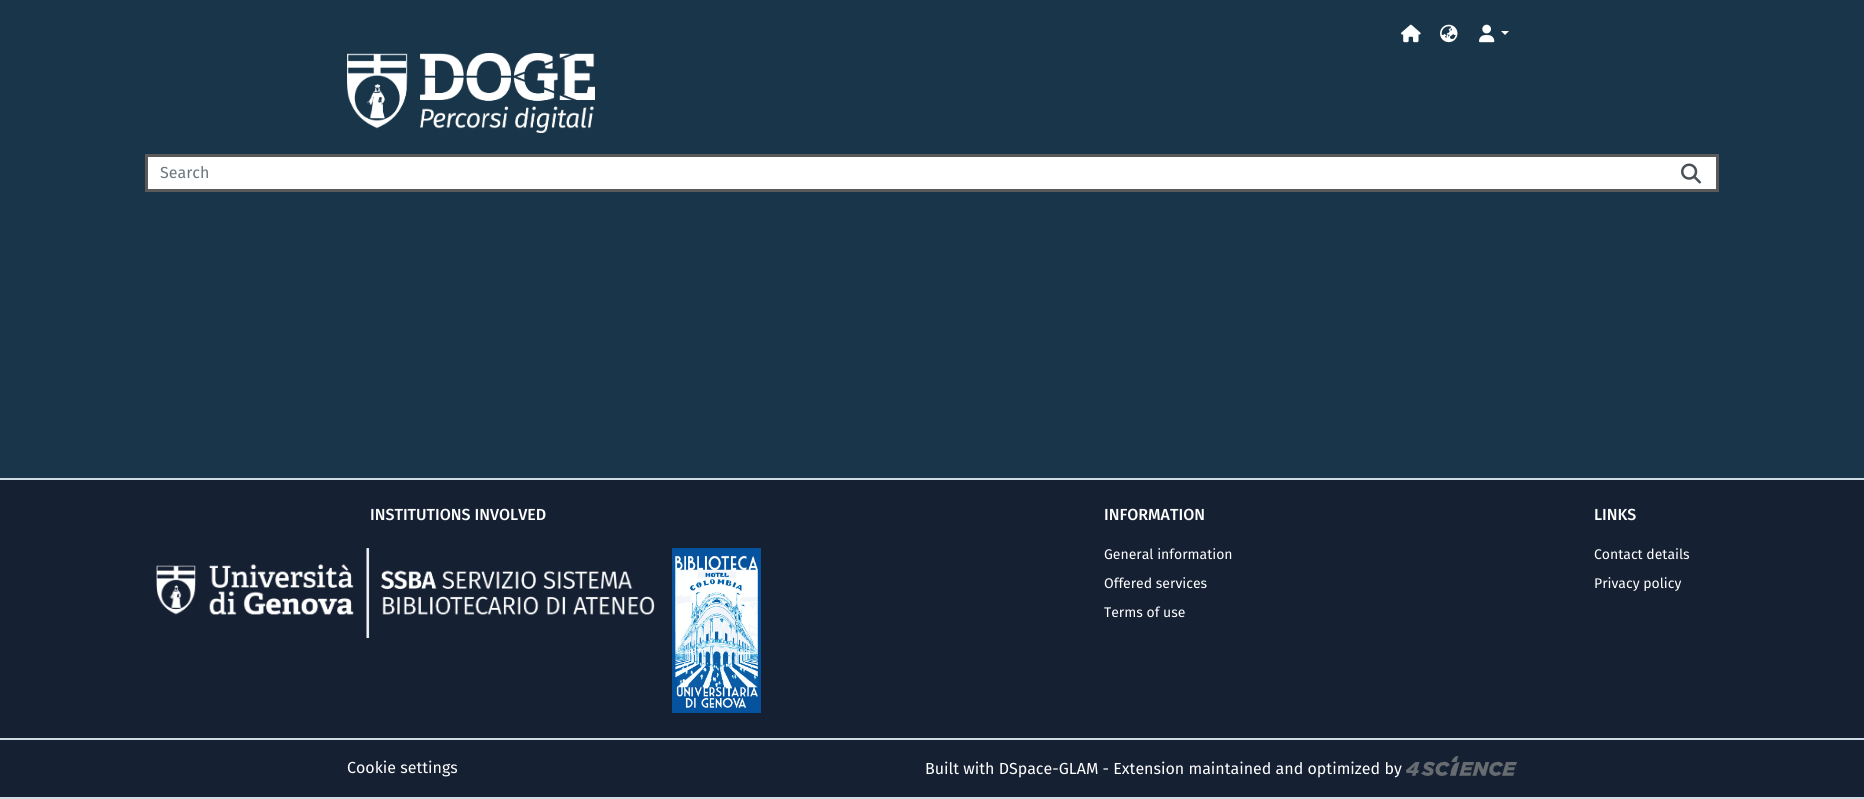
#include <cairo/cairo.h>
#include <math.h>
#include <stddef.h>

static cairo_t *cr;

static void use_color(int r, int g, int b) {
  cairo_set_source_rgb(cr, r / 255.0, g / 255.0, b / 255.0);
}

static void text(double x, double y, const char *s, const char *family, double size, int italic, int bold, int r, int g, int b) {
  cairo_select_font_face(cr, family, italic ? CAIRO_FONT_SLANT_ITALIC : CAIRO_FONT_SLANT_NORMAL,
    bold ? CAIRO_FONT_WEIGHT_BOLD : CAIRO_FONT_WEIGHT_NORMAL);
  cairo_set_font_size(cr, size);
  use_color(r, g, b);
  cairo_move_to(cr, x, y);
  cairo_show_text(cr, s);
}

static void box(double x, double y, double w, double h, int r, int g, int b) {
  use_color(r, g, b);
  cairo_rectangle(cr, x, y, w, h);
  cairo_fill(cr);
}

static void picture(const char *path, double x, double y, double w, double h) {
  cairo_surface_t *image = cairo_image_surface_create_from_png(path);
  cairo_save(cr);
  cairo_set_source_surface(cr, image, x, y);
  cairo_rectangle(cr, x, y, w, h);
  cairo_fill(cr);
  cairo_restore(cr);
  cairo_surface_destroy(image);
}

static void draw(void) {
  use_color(24, 53, 74);
  cairo_paint(cr);
  picture("img_01.png", 1401, 24, 20, 19);
  picture("img_02.png", 1440, 24, 18, 19);
  picture("img_03.png", 1479, 24, 16, 19);
  use_color(255, 255, 255);
  cairo_new_path(cr);
  cairo_move_to(cr, 1501, 31);
  cairo_line_to(cr, 1509, 31);
  cairo_line_to(cr, 1505, 35);
  cairo_close_path(cr);
  cairo_fill(cr);
  picture("img_04.png", 347, 53, 248, 80);
  box(148, 157, 1568, 32, 255, 255, 255);
  box(145, 154, 1574, 3, 90, 90, 90);
  box(1716, 154, 3, 38, 90, 90, 90);
  box(145, 189, 1574, 3, 90, 90, 90);
  picture("img_05.png", 1681, 163, 20, 21);
  box(145, 154, 3, 38, 90, 90, 90);
  box(0, 480, 1864, 258, 21, 32, 51);
  box(0, 478, 1864, 2, 205, 220, 226);
  box(0, 738, 1864, 2, 205, 220, 226);
  picture("img_06.png", 156, 548, 499, 90);
  picture("img_07.png", 672, 548, 89, 165);
  box(0, 740, 1864, 57, 21, 32, 51);
  box(0, 797, 1864, 2, 205, 220, 226);
  picture("img_08.png", 1406, 756, 111, 20);
  text(160, 178, "Search", "Fira Sans", 16, 0, 0, 108, 117, 125);
  text(370, 520, "INSTITUTIONS INVOLVED", "Fira Sans Medium", 16, 0, 0, 255, 255, 255);
  text(1104, 520, "INFORMATION", "Fira Sans Medium", 16, 0, 0, 255, 255, 255);
  text(1104, 559, "General information", "Fira Sans", 14, 0, 0, 255, 255, 255);
  text(1104, 588, "Offered services", "Fira Sans", 14, 0, 0, 255, 255, 255);
  text(1104, 617, "Terms of use", "Fira Sans", 14, 0, 0, 255, 255, 255);
  text(1594, 520, "LINKS", "Fira Sans Medium", 16, 0, 0, 255, 255, 255);
  text(1594, 559, "Contact details", "Fira Sans", 14, 0, 0, 255, 255, 255);
  text(1594, 588, "Privacy policy", "Fira Sans", 14, 0, 0, 255, 255, 255);
  text(347, 773, "Cookie settings", "Fira Sans", 16, 0, 0, 255, 255, 255);
  text(925, 774, "Built with DSpace-GLAM - Extension maintained and optimized by", "Fira Sans", 16, 0, 0, 255, 255, 255);
}

int main(void) {
  cairo_surface_t *surface = cairo_image_surface_create(CAIRO_FORMAT_RGB24, 1864, 799);
  cr = cairo_create(surface);
  cairo_font_options_t *options = cairo_font_options_create();
  cairo_font_options_set_hint_metrics(options, CAIRO_HINT_METRICS_OFF);
  cairo_font_options_set_hint_style(options, CAIRO_HINT_STYLE_NONE);
  cairo_set_font_options(cr, options);
  cairo_set_miter_limit(cr, 4);
  draw();
  cairo_surface_write_to_png(surface, "out.png");
  cairo_font_options_destroy(options);
  cairo_destroy(cr);
  cairo_surface_destroy(surface);
  return 0;
}
